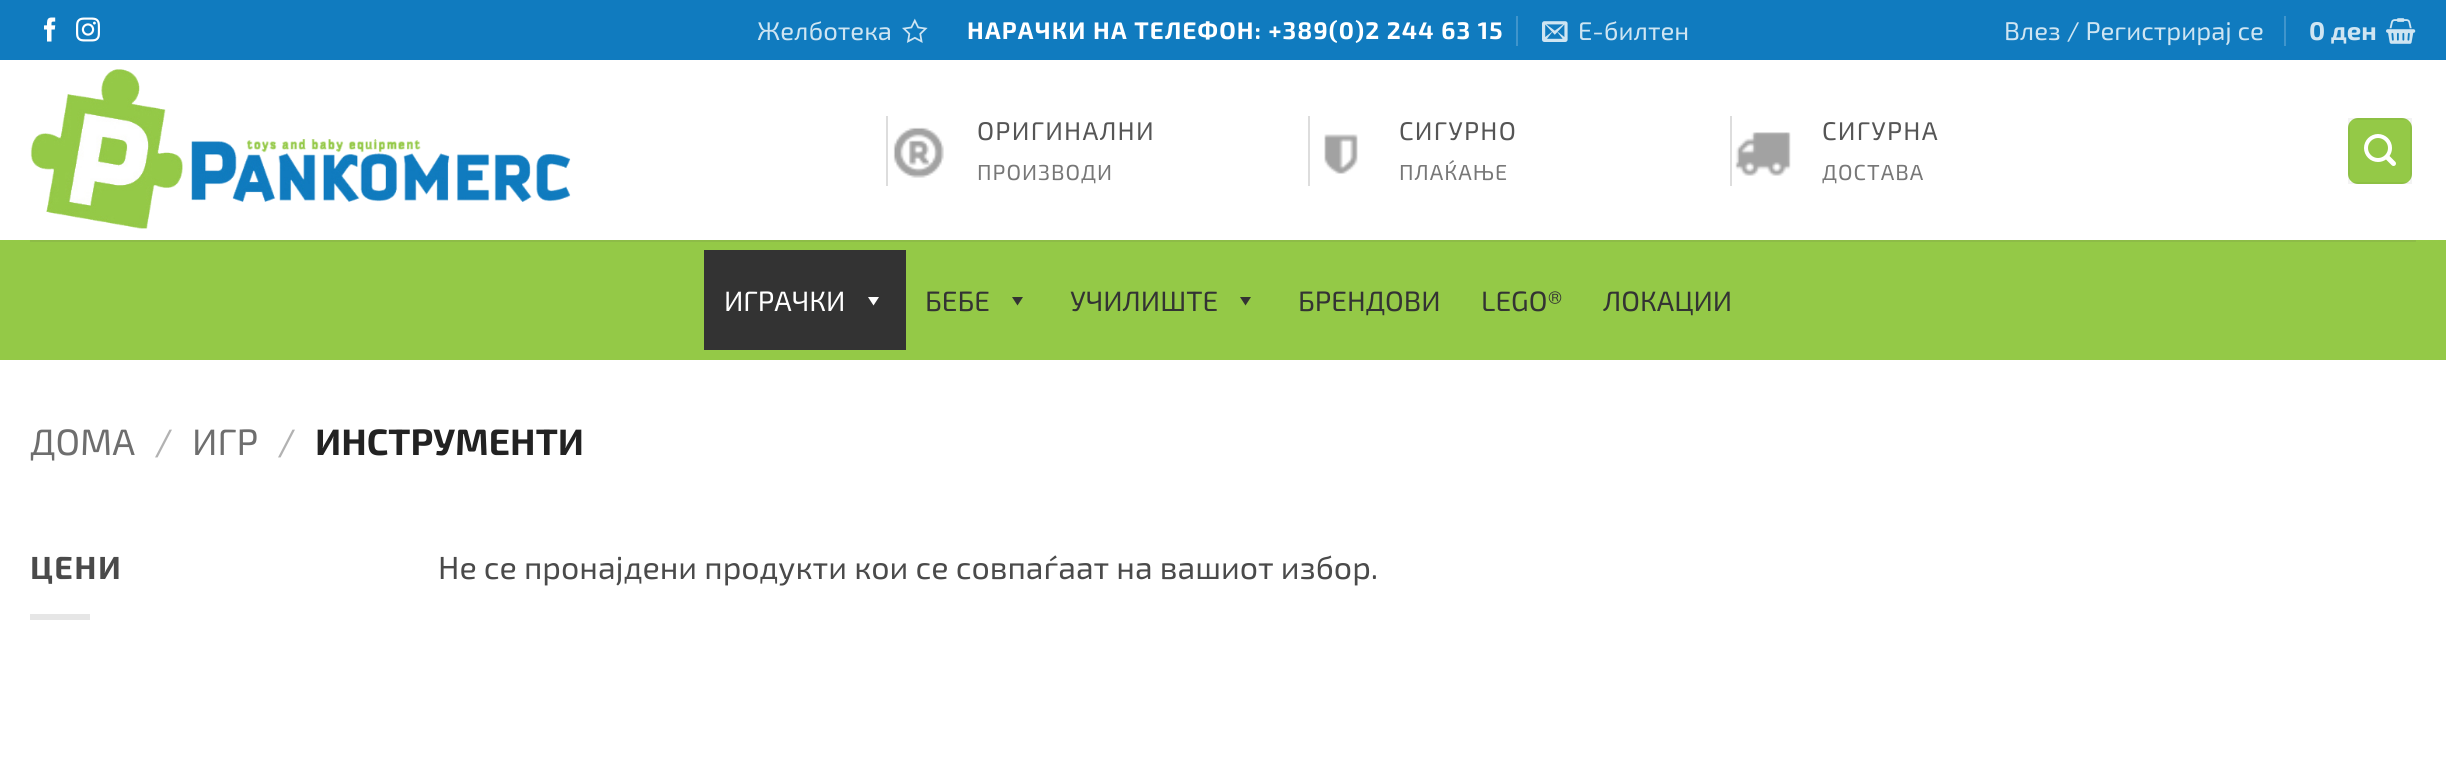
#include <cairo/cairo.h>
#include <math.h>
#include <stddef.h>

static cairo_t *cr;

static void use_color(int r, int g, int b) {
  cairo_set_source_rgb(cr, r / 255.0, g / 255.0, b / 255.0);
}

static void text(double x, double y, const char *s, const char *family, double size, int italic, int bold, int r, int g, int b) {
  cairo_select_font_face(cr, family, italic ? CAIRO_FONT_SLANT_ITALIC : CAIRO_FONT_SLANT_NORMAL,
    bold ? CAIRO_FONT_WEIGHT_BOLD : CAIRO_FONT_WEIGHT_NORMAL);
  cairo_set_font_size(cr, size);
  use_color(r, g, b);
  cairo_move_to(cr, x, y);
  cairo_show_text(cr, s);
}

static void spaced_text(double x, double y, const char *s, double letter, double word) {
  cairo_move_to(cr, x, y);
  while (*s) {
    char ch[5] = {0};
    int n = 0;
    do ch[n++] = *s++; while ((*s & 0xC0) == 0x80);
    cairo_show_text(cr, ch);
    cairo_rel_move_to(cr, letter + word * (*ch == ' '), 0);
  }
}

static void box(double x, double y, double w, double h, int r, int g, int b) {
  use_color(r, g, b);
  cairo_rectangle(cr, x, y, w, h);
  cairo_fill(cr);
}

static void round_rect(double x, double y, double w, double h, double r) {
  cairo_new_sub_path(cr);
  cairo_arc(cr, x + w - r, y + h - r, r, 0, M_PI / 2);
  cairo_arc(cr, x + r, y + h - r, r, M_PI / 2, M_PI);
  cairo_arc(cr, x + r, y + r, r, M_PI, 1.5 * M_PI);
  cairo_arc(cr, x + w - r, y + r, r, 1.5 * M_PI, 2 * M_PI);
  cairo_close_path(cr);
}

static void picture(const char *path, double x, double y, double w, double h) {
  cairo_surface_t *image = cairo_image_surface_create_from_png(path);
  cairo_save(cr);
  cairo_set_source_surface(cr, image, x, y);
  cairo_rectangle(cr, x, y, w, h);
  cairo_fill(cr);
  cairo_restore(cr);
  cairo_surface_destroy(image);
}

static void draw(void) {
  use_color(255, 255, 255);
  cairo_paint(cr);
  box(0, 0, 2446, 60, 16, 123, 191);
  picture("img_01.png", 44, 17, 12, 25);
  picture("img_02.png", 76, 17, 24, 25);
  picture("img_03.png", 902, 18, 26, 25);
  box(1516, 16, 2, 30, 64, 149, 204);
  picture("img_04.png", 1542, 21, 26, 21);
  box(2284, 16, 2, 30, 64, 149, 204);
  picture("img_05.png", 2386, 18, 30, 26);
  picture("img_06.png", 30, 69, 541, 160);
  box(886, 116, 2, 70, 221, 221, 221);
  picture("img_07.png", 893, 127, 51, 51);
  box(1308, 116, 2, 70, 221, 221, 221);
  picture("img_08.png", 1324, 134, 34, 40);
  box(1730, 116, 2, 70, 221, 221, 221);
  picture("img_09.png", 1735, 132, 56, 44);
  use_color(148, 201, 71);
  round_rect(2348, 118, 64, 66, 10);
  cairo_fill(cr);
  cairo_rectangle(cr, 2349, 119, 62, 64);
  cairo_set_source_rgba(cr, 0, 0, 0, 0.05);
  cairo_stroke(cr);
  picture("img_10.png", 2364, 134, 32, 32);
  box(0, 240, 2446, 120, 148, 201, 71);
  box(30, 240, 2386, 2, 141, 188, 71);
  box(704, 250, 202, 100, 51, 51, 51);
  use_color(255, 255, 255);
  cairo_new_path(cr);
  cairo_move_to(cr, 879, 297);
  cairo_line_to(cr, 873.5, 305.5);
  cairo_line_to(cr, 868, 297);
  cairo_close_path(cr);
  cairo_fill(cr);
  use_color(51, 51, 51);
  cairo_new_path(cr);
  cairo_move_to(cr, 1023, 297);
  cairo_line_to(cr, 1017.5, 305.5);
  cairo_line_to(cr, 1012, 297);
  cairo_close_path(cr);
  cairo_fill(cr);
  cairo_new_path(cr);
  cairo_move_to(cr, 1251, 297);
  cairo_line_to(cr, 1245.5, 305.5);
  cairo_line_to(cr, 1240, 297);
  cairo_close_path(cr);
  cairo_fill(cr);
  box(30, 614, 60, 6, 230, 230, 230);
  text(757, 40, "Желботека", "Exo 2", 25.6, 0, 0, 207, 229, 242);
  cairo_select_font_face(cr, "Exo 2", CAIRO_FONT_SLANT_NORMAL, CAIRO_FONT_WEIGHT_BOLD);
  cairo_set_font_size(cr, 24);
  use_color(255, 255, 255);
  spaced_text(967, 39, "НАРАЧКИ НА ТЕЛЕФОН: +389(0)2 244 63 15", 1.2, 0);
  text(1578, 40, "Е-билтен", "Exo 2", 25.6, 0, 0, 207, 229, 242);
  text(2004, 40, "Влез / Регистрирај се", "Exo 2", 25.6, 0, 0, 207, 229, 242);
  text(2309, 40, "0 ден", "Exo 2", 25.6, 0, 1, 207, 229, 242);
  cairo_select_font_face(cr, "Exo 2", CAIRO_FONT_SLANT_NORMAL, CAIRO_FONT_WEIGHT_NORMAL);
  use_color(85, 85, 85);
  spaced_text(977, 140, "ОРИГИНАЛНИ", 1.25, 0);
  cairo_set_font_size(cr, 21.75);
  use_color(119, 119, 119);
  spaced_text(977, 180, "ПРОИЗВОДИ", 1, 0);
  cairo_set_font_size(cr, 25.6);
  use_color(85, 85, 85);
  spaced_text(1399, 140, "СИГУРНО", 1.25, 0);
  cairo_set_font_size(cr, 21.75);
  use_color(119, 119, 119);
  spaced_text(1399, 180, "ПЛАЌАЊЕ", 1, 0);
  cairo_set_font_size(cr, 25.6);
  use_color(85, 85, 85);
  spaced_text(1822, 140, "СИГУРНА", 1.25, 0);
  cairo_set_font_size(cr, 21.75);
  use_color(119, 119, 119);
  spaced_text(1822, 180, "ДОСТАВА", 1, 0);
  text(724, 311, "ИГРАЧКИ", "Exo 2", 28, 0, 0, 255, 255, 255);
  text(925, 311, "БЕБЕ", "Exo 2", 28, 0, 0, 51, 51, 51);
  text(1070, 311, "УЧИЛИШТЕ", "Exo 2", 28, 0, 0, 51, 51, 51);
  text(1298, 311, "БРЕНДОВИ", "Exo 2", 28, 0, 0, 51, 51, 51);
  text(1481, 311, "LEGO®", "Exo 2", 28, 0, 0, 51, 51, 51);
  text(1603, 311, "ЛОКАЦИИ", "Exo 2", 28, 0, 0, 51, 51, 51);
  text(30, 455, "ДОМА", "Exo 2", 36.75, 0, 0, 110, 110, 110);
  text(154, 455, "/", "Exo 2", 36.75, 0, 0, 178, 178, 178);
  text(192, 455, "ИГР", "Exo 2", 36.75, 0, 0, 110, 110, 110);
  text(277, 455, "/", "Exo 2", 36.75, 0, 0, 178, 178, 178);
  text(315, 455, "ИНСТРУМЕНТИ", "Exo 2", 36.75, 0, 1, 34, 34, 34);
  cairo_set_font_size(cr, 32);
  use_color(74, 74, 74);
  spaced_text(30, 579, "ЦЕНИ", 1.5, 0);
  text(438, 579, "Не се пронајдени продукти кои се совпаѓаат на вашиот избор.", "Exo 2", 32, 0, 0, 74, 74, 74);
}

int main(void) {
  cairo_surface_t *surface = cairo_image_surface_create(CAIRO_FORMAT_RGB24, 2446, 758);
  cr = cairo_create(surface);
  cairo_font_options_t *options = cairo_font_options_create();
  cairo_font_options_set_hint_metrics(options, CAIRO_HINT_METRICS_OFF);
  cairo_font_options_set_hint_style(options, CAIRO_HINT_STYLE_NONE);
  cairo_set_font_options(cr, options);
  cairo_set_miter_limit(cr, 4);
  draw();
  cairo_surface_write_to_png(surface, "out.png");
  cairo_font_options_destroy(options);
  cairo_destroy(cr);
  cairo_surface_destroy(surface);
  return 0;
}
